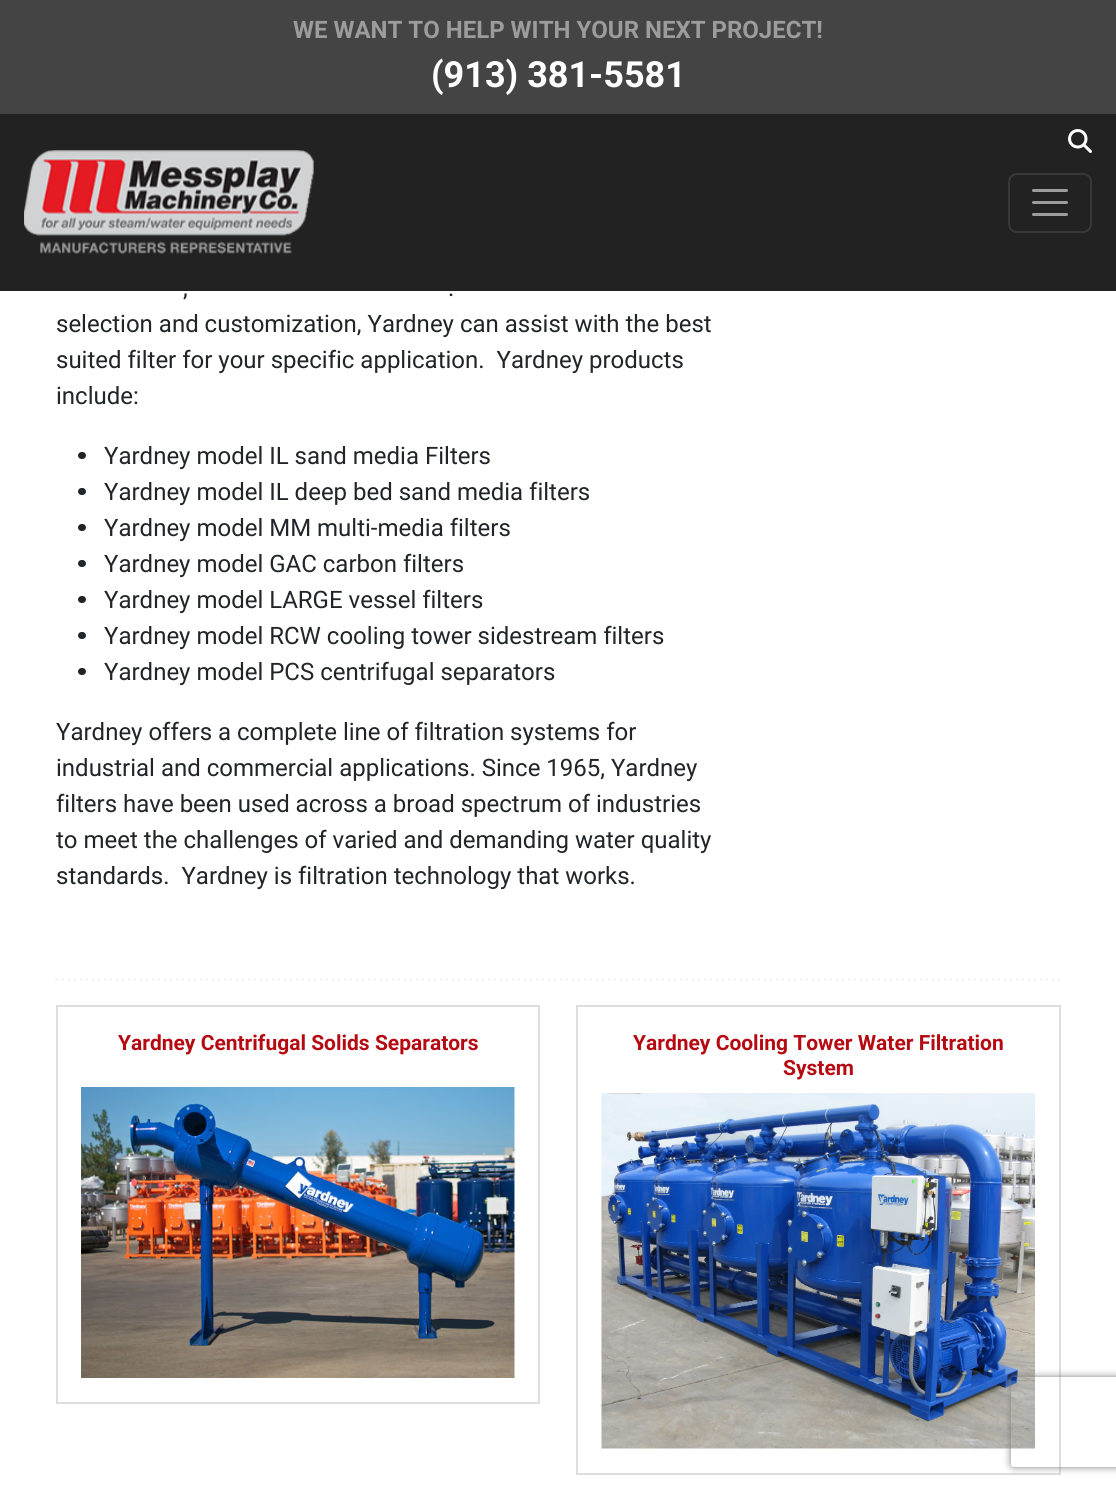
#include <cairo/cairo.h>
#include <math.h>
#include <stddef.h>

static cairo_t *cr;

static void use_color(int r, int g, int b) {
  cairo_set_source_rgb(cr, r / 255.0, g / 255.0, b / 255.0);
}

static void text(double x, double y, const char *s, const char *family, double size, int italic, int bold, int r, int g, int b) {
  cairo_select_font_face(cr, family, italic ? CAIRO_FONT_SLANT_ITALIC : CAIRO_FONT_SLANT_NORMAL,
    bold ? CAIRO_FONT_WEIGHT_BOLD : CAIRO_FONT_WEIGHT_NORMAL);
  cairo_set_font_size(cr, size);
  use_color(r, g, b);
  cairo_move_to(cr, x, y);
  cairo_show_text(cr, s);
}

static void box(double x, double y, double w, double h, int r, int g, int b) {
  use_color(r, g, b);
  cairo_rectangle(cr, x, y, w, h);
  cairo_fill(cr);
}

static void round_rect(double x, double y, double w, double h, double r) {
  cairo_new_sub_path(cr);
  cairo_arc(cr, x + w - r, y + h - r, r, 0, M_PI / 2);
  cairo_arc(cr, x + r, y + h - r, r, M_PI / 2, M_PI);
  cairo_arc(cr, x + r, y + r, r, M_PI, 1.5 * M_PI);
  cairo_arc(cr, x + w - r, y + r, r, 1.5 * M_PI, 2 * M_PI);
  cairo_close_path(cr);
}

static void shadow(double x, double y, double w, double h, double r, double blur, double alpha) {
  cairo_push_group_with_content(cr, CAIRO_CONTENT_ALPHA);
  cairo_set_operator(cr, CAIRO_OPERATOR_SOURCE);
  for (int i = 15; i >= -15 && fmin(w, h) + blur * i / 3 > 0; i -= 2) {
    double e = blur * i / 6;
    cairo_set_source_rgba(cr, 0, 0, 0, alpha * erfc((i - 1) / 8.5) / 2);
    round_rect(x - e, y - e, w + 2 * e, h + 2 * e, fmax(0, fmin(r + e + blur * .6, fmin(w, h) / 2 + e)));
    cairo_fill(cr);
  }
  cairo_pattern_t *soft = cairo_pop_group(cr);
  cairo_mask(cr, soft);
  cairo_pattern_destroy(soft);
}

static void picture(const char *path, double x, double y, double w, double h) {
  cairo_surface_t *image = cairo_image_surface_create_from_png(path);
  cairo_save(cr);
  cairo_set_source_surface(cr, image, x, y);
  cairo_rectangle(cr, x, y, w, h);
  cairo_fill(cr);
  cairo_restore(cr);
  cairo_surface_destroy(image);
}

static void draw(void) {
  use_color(255, 255, 255);
  cairo_paint(cr);
  box(0, 0, 1116, 114, 68, 68, 68);
  box(0, 114, 1116, 177, 34, 34, 34);
  picture("img_01.png", 1068, 129, 24, 24);
  picture("img_02.png", 24, 150, 290, 104);
  round_rect(1009, 174, 82, 58, 8);
  use_color(56, 56, 56);
  cairo_stroke(cr);
  cairo_new_path(cr);
  cairo_move_to(cr, 1033.5, 190.5);
  cairo_line_to(cr, 1066.5, 190.5);
  cairo_move_to(cr, 1033.5, 202.5);
  cairo_line_to(cr, 1066.5, 202.5);
  cairo_move_to(cr, 1033.5, 214.5);
  cairo_line_to(cr, 1066.5, 214.5);
  use_color(156, 156, 156);
  cairo_set_line_width(cr, 3);
  cairo_set_line_cap(cr, CAIRO_LINE_CAP_ROUND);
  cairo_stroke(cr);
  use_color(33, 37, 41);
  round_rect(78, 452, 8, 7, 3.5);
  cairo_fill(cr);
  round_rect(78, 488, 8, 7, 3.5);
  cairo_fill(cr);
  round_rect(78, 524, 8, 7, 3.5);
  cairo_fill(cr);
  round_rect(78, 560, 8, 7, 3.5);
  cairo_fill(cr);
  round_rect(78, 596, 8, 7, 3.5);
  cairo_fill(cr);
  round_rect(78, 632, 8, 7, 3.5);
  cairo_fill(cr);
  round_rect(78, 668, 8, 7, 3.5);
  cairo_fill(cr);
  cairo_new_path(cr);
  cairo_move_to(cr, 55.5, 979.5);
  cairo_line_to(cr, 1060.5, 979.5);
  use_color(247, 247, 247);
  cairo_set_line_cap(cr, CAIRO_LINE_CAP_BUTT);
  cairo_set_dash(cr, (double[]){3, 3}, 2, 0);
  cairo_stroke(cr);
  cairo_rectangle(cr, 57, 1006, 482, 397);
  use_color(221, 221, 221);
  cairo_set_line_width(cr, 2);
  cairo_set_dash(cr, NULL, 0, 0);
  cairo_stroke(cr);
  picture("img_03.png", 81, 1087, 434, 291);
  cairo_rectangle(cr, 577, 1006, 483, 468);
  cairo_stroke(cr);
  picture("img_04.png", 601, 1093, 434, 356);
  cairo_save(cr);
  cairo_set_fill_rule(cr, CAIRO_FILL_RULE_EVEN_ODD);
  cairo_new_path(cr);
  cairo_move_to(cr, 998, 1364);
  cairo_line_to(cr, 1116, 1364);
  cairo_line_to(cr, 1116, 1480);
  cairo_line_to(cr, 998, 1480);
  cairo_close_path(cr);
  cairo_move_to(cr, 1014, 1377);
  cairo_line_to(cr, 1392, 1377);
  cairo_curve_to(cr, 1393.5, 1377, 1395, 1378.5, 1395, 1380);
  cairo_line_to(cr, 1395, 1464);
  cairo_curve_to(cr, 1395, 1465.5, 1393.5, 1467, 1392, 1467);
  cairo_line_to(cr, 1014, 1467);
  cairo_curve_to(cr, 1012.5, 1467, 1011, 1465.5, 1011, 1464);
  cairo_line_to(cr, 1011, 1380);
  cairo_curve_to(cr, 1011, 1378.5, 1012.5, 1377, 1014, 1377);
  cairo_close_path(cr);
  cairo_clip(cr);
  use_color(128, 128, 128);
  shadow(1011, 1377, 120, 90, 3, 4, 1);
  cairo_restore(cr);
  text(293, 38, "WE WANT TO HELP WITH YOUR NEXT PROJECT!", "Roboto", 24, 0, 1, 156, 156, 156);
  text(431, 87, "(913) 381-5581", "Roboto", 36, 0, 1, 255, 255, 255);
  text(183, 296, ",", "Roboto", 24, 0, 0, 33, 37, 41);
  text(448, 296, ".", "Roboto", 24, 0, 0, 33, 37, 41);
  text(56, 332, "selection and customization, Yardney can assist with the best", "Roboto", 24, 0, 0, 33, 37, 41);
  text(56, 368, "suited filter for your specific application.  Yardney products", "Roboto", 24, 0, 0, 33, 37, 41);
  text(56, 404, "include:", "Roboto", 24, 0, 0, 33, 37, 41);
  text(104, 464, "Yardney model IL sand media Filters", "Roboto", 24, 0, 0, 33, 37, 41);
  text(104, 500, "Yardney model IL deep bed sand media filters", "Roboto", 24, 0, 0, 33, 37, 41);
  text(104, 536, "Yardney model MM multi-media filters", "Roboto", 24, 0, 0, 33, 37, 41);
  text(104, 572, "Yardney model GAC carbon filters", "Roboto", 24, 0, 0, 33, 37, 41);
  text(104, 608, "Yardney model LARGE vessel filters", "Roboto", 24, 0, 0, 33, 37, 41);
  text(104, 644, "Yardney model RCW cooling tower sidestream filters", "Roboto", 24, 0, 0, 33, 37, 41);
  text(104, 680, "Yardney model PCS centrifugal separators", "Roboto", 24, 0, 0, 33, 37, 41);
  text(56, 740, "Yardney offers a complete line of filtration systems for", "Roboto", 24, 0, 0, 33, 37, 41);
  text(56, 776, "industrial and commercial applications. Since 1965, Yardney", "Roboto", 24, 0, 0, 33, 37, 41);
  text(56, 812, "filters have been used across a broad spectrum of industries", "Roboto", 24, 0, 0, 33, 37, 41);
  text(56, 848, "to meet the challenges of varied and demanding water quality", "Roboto", 24, 0, 0, 33, 37, 41);
  text(56, 884, "standards.  Yardney is filtration technology that works.", "Roboto", 24, 0, 0, 33, 37, 41);
  text(118, 1050, "Yardney Centrifugal Solids Separators", "Roboto", 21, 0, 1, 182, 10, 18);
  text(633, 1050, "Yardney Cooling Tower Water Filtration", "Roboto", 21, 0, 1, 182, 10, 18);
  text(783, 1075, "System", "Roboto", 21, 0, 1, 182, 10, 18);
}

int main(void) {
  cairo_surface_t *surface = cairo_image_surface_create(CAIRO_FORMAT_RGB24, 1116, 1488);
  cr = cairo_create(surface);
  cairo_font_options_t *options = cairo_font_options_create();
  cairo_font_options_set_hint_metrics(options, CAIRO_HINT_METRICS_OFF);
  cairo_font_options_set_hint_style(options, CAIRO_HINT_STYLE_NONE);
  cairo_set_font_options(cr, options);
  cairo_set_miter_limit(cr, 4);
  draw();
  cairo_surface_write_to_png(surface, "out.png");
  cairo_font_options_destroy(options);
  cairo_destroy(cr);
  cairo_surface_destroy(surface);
  return 0;
}
